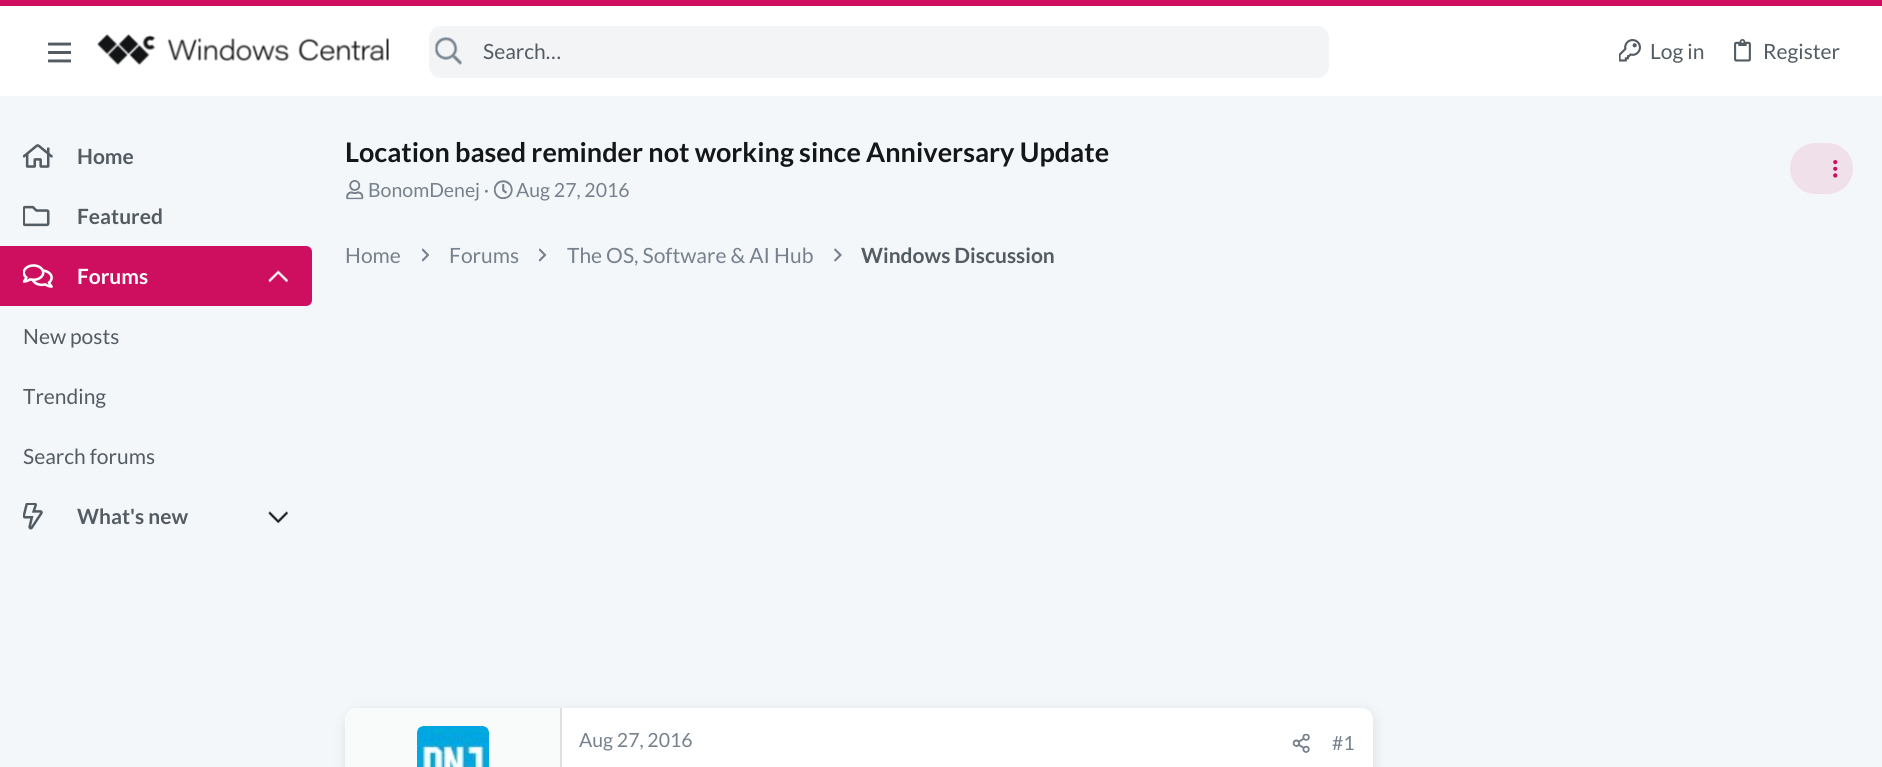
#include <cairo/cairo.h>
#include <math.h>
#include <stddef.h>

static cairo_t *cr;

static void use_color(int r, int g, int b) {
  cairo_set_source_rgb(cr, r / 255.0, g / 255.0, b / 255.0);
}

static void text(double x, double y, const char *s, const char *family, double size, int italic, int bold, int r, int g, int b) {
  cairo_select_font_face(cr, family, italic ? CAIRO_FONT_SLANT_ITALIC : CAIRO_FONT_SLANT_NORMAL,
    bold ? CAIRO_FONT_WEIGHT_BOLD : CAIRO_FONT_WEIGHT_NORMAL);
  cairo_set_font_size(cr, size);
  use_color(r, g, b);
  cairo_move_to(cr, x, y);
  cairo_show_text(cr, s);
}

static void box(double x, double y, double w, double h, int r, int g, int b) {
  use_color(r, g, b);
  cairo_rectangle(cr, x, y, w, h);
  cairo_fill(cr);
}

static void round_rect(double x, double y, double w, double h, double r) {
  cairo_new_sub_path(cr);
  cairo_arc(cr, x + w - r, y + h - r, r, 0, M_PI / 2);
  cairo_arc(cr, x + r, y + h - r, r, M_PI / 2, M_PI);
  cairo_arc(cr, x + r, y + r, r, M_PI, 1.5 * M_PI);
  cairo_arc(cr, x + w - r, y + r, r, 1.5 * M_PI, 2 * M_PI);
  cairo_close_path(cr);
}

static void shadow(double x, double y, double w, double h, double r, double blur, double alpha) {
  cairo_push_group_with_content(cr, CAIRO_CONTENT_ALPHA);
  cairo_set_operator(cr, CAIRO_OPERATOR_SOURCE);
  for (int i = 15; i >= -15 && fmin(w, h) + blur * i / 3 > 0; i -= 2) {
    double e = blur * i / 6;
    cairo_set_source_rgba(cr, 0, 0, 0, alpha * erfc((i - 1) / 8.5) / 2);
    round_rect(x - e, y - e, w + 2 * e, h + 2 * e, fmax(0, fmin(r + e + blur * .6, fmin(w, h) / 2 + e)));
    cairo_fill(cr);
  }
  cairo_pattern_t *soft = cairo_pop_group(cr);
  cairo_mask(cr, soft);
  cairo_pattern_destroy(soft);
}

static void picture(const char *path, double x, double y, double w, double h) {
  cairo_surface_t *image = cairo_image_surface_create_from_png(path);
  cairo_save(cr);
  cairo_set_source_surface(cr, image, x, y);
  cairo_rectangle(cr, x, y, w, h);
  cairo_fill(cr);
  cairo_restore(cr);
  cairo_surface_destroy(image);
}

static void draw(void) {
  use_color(244, 247, 249);
  cairo_paint(cr);
  box(0, 6, 1882, 90, 255, 255, 255);
  box(0, 0, 1882, 6, 206, 14, 95);
  picture("img_01.png", 48, 42, 23, 21);
  picture("img_02.png", 97, 34, 292, 31);
  use_color(243, 244, 245);
  round_rect(429, 26, 900, 52, 12);
  cairo_fill(cr);
  picture("img_03.png", 434, 37, 28, 28);
  picture("img_04.png", 1619, 39, 22, 23);
  picture("img_05.png", 1734, 39, 17, 23);
  picture("img_06.png", 23, 144, 30, 24);
  picture("img_07.png", 23, 205, 27, 22);
  use_color(206, 14, 95);
  cairo_new_path(cr);
  cairo_move_to(cr, 0, 246);
  cairo_line_to(cr, 306, 246);
  cairo_curve_to(cr, 309.5, 246, 312, 248.5, 312, 252);
  cairo_line_to(cr, 312, 300);
  cairo_curve_to(cr, 312, 303.5, 309.5, 306, 306, 306);
  cairo_line_to(cr, 0, 306);
  cairo_close_path(cr);
  cairo_fill(cr);
  picture("img_08.png", 23, 264, 30, 24);
  picture("img_09.png", 268, 270, 20, 13);
  picture("img_10.png", 23, 503, 20, 27);
  picture("img_11.png", 268, 511, 20, 13);
  picture("img_12.png", 346, 180, 18, 20);
  picture("img_13.png", 493, 180, 20, 20);
  use_color(240, 224, 234);
  round_rect(1790, 143, 63, 51, 25.5);
  cairo_fill(cr);
  picture("img_14.png", 1833, 160, 5, 18);
  picture("img_15.png", 422, 248, 7, 14);
  picture("img_16.png", 539, 248, 8, 14);
  picture("img_17.png", 834, 248, 8, 14);
  use_color(107, 119, 128);
  shadow(348, 708, 1028, 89, 12, 6, 0.08);
  shadow(345, 714, 1028, 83, 12, 6, 0.12);
  use_color(255, 255, 255);
  round_rect(345, 708, 1028, 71, 12);
  cairo_fill(cr);
  use_color(249, 250, 250);
  cairo_new_path(cr);
  cairo_move_to(cr, 356, 708);
  cairo_line_to(cr, 561, 708);
  cairo_line_to(cr, 561, 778);
  cairo_line_to(cr, 356, 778);
  cairo_curve_to(cr, 350, 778, 345, 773, 345, 767);
  cairo_line_to(cr, 345, 719);
  cairo_curve_to(cr, 345, 713, 350, 708, 356, 708);
  cairo_close_path(cr);
  cairo_fill(cr);
  box(560, 708, 2, 59, 224, 224, 224);
  use_color(255, 255, 255);
  round_rect(417, 726, 72, 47, 6);
  cairo_fill(cr);
  picture("img_18.png", 417, 726, 72, 41);
  picture("img_19.png", 1292, 733, 18, 20);
  text(483, 59, "Search…", "Lato", 21, 0, 0, 83, 91, 99);
  text(1650, 59, "Log in", "Lato", 21, 0, 0, 83, 91, 99);
  text(1763, 59, "Register", "Lato", 21, 0, 0, 83, 91, 99);
  text(77, 164, "Home", "Lato", 21, 0, 1, 83, 91, 99);
  text(77, 224, "Featured", "Lato", 21, 0, 1, 83, 91, 99);
  text(77, 284, "Forums", "Lato", 21, 0, 1, 255, 255, 255);
  text(23, 344, "New posts", "Lato", 21, 0, 0, 83, 91, 99);
  text(23, 404, "Trending", "Lato", 21, 0, 0, 83, 91, 99);
  text(23, 464, "Search forums", "Lato", 21, 0, 0, 83, 91, 99);
  text(77, 524, "What's new", "Lato", 21, 0, 1, 83, 91, 99);
  text(345, 162, "Location based reminder not working since Anniversary Update", "Lato", 27, 0, 1, 20, 22, 24);
  text(368, 197, "BonomDenej ·", "Lato", 19.5, 0, 0, 118, 129, 141);
  text(516, 197, "Aug 27, 2016", "Lato", 19.5, 0, 0, 118, 129, 141);
  text(345, 263, "Home", "Lato", 21, 0, 0, 118, 129, 141);
  text(449, 263, "Forums", "Lato", 21, 0, 0, 118, 129, 141);
  text(567, 263, "The OS, Software & AI Hub", "Lato", 21, 0, 0, 118, 129, 141);
  text(861, 263, "Windows Discussion", "Lato", 21, 0, 1, 83, 91, 99);
  text(579, 747, "Aug 27, 2016", "Lato", 19.5, 0, 0, 118, 129, 141);
  text(1332, 750, "#1", "Lato", 19.5, 0, 0, 118, 129, 141);
}

int main(void) {
  cairo_surface_t *surface = cairo_image_surface_create(CAIRO_FORMAT_RGB24, 1882, 767);
  cr = cairo_create(surface);
  cairo_font_options_t *options = cairo_font_options_create();
  cairo_font_options_set_hint_metrics(options, CAIRO_HINT_METRICS_OFF);
  cairo_font_options_set_hint_style(options, CAIRO_HINT_STYLE_NONE);
  cairo_set_font_options(cr, options);
  cairo_set_miter_limit(cr, 4);
  draw();
  cairo_surface_write_to_png(surface, "out.png");
  cairo_font_options_destroy(options);
  cairo_destroy(cr);
  cairo_surface_destroy(surface);
  return 0;
}
